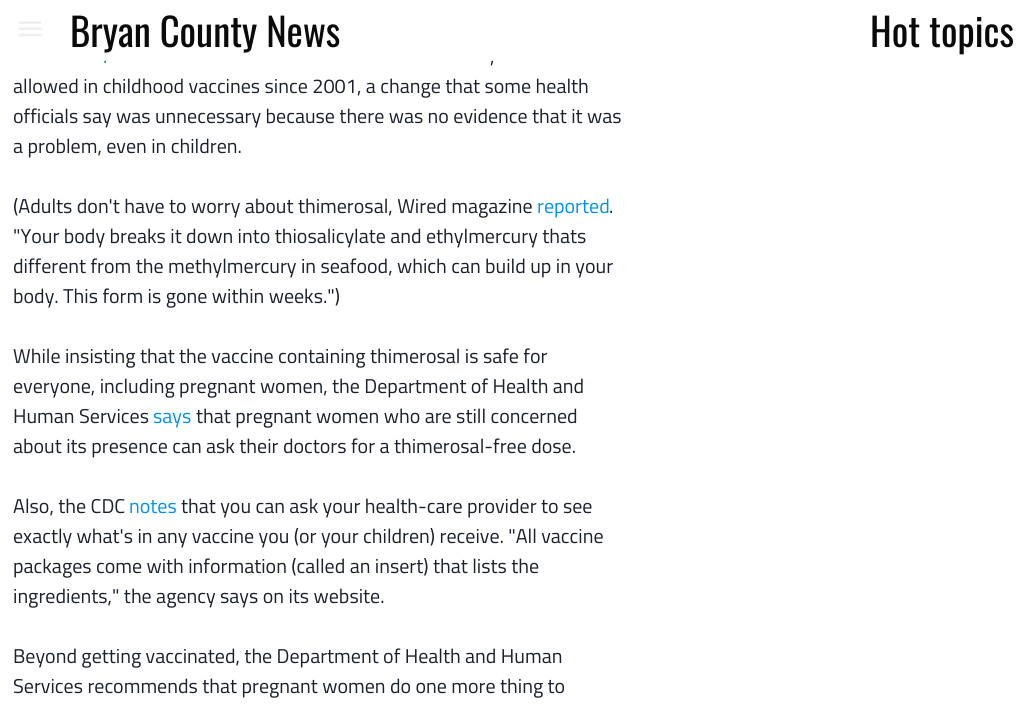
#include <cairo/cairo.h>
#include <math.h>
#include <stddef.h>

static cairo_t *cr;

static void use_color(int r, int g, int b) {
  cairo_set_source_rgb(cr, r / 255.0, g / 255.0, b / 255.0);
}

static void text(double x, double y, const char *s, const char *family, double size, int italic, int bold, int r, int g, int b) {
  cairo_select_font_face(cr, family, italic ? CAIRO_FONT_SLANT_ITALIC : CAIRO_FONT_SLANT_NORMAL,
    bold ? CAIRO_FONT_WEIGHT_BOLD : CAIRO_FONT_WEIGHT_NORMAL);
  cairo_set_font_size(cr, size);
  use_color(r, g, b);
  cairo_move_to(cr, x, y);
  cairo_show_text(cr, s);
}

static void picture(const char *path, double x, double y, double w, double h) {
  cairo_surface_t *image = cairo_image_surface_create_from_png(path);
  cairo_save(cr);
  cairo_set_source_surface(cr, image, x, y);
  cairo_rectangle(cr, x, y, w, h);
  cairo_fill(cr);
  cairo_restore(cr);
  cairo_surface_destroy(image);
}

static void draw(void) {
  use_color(255, 255, 255);
  cairo_paint(cr);
  picture("img_01.png", 18, 21, 24, 16);
  text(70, 47, "Bryan County News", "Oswald", 38.75, 0, 0, 10, 10, 10);
  text(870, 47, "Hot topics", "Oswald", 38.75, 0, 0, 10, 10, 10);
  text(103, 63, ".", "Titillium Web", 20, 0, 0, 0, 145, 236);
  text(490, 63, ",", "Titillium Web", 20, 0, 0, 26, 32, 44);
  text(13, 93, "allowed in childhood vaccines since 2001, a change that some health", "Titillium Web", 20, 0, 0, 26, 32, 44);
  text(13, 123, "officials say was unnecessary because there was no evidence that it was", "Titillium Web", 20, 0, 0, 26, 32, 44);
  text(13, 153, "a problem, even in children.", "Titillium Web", 20, 0, 0, 26, 32, 44);
  text(13, 213, "(Adults don't have to worry about thimerosal, Wired magazine", "Titillium Web", 20, 0, 0, 26, 32, 44);
  text(537, 213, "reported", "Titillium Web", 20, 0, 0, 0, 145, 236);
  text(609, 213, ".", "Titillium Web", 20, 0, 0, 26, 32, 44);
  text(13, 243, "\"Your body breaks it down into thiosalicylate and ethylmercury thats", "Titillium Web", 20, 0, 0, 26, 32, 44);
  text(13, 273, "different from the methylmercury in seafood, which can build up in your", "Titillium Web", 20, 0, 0, 26, 32, 44);
  text(13, 303, "body. This form is gone within weeks.\")", "Titillium Web", 20, 0, 0, 26, 32, 44);
  text(13, 363, "While insisting that the vaccine containing thimerosal is safe for", "Titillium Web", 20, 0, 0, 26, 32, 44);
  text(13, 393, "everyone, including pregnant women, the Department of Health and", "Titillium Web", 20, 0, 0, 26, 32, 44);
  text(13, 423, "Human Services", "Titillium Web", 20, 0, 0, 26, 32, 44);
  text(153, 423, "says", "Titillium Web", 20, 0, 0, 0, 145, 236);
  text(196, 423, "that pregnant women who are still concerned", "Titillium Web", 20, 0, 0, 26, 32, 44);
  text(13, 453, "about its presence can ask their doctors for a thimerosal-free dose.", "Titillium Web", 20, 0, 0, 26, 32, 44);
  text(13, 513, "Also, the CDC", "Titillium Web", 20, 0, 0, 26, 32, 44);
  text(129, 513, "notes", "Titillium Web", 20, 0, 0, 0, 145, 236);
  text(181, 513, "that you can ask your health-care provider to see", "Titillium Web", 20, 0, 0, 26, 32, 44);
  text(13, 543, "exactly what's in any vaccine you (or your children) receive. \"All vaccine", "Titillium Web", 20, 0, 0, 26, 32, 44);
  text(13, 573, "packages come with information (called an insert) that lists the", "Titillium Web", 20, 0, 0, 26, 32, 44);
  text(13, 603, "ingredients,\" the agency says on its website.", "Titillium Web", 20, 0, 0, 26, 32, 44);
  text(13, 663, "Beyond getting vaccinated, the Department of Health and Human", "Titillium Web", 20, 0, 0, 26, 32, 44);
  text(13, 693, "Services recommends that pregnant women do one more thing to", "Titillium Web", 20, 0, 0, 26, 32, 44);
}

int main(void) {
  cairo_surface_t *surface = cairo_image_surface_create(CAIRO_FORMAT_RGB24, 1033, 710);
  cr = cairo_create(surface);
  cairo_font_options_t *options = cairo_font_options_create();
  cairo_font_options_set_hint_metrics(options, CAIRO_HINT_METRICS_OFF);
  cairo_font_options_set_hint_style(options, CAIRO_HINT_STYLE_NONE);
  cairo_set_font_options(cr, options);
  cairo_set_miter_limit(cr, 4);
  draw();
  cairo_surface_write_to_png(surface, "out.png");
  cairo_font_options_destroy(options);
  cairo_destroy(cr);
  cairo_surface_destroy(surface);
  return 0;
}
